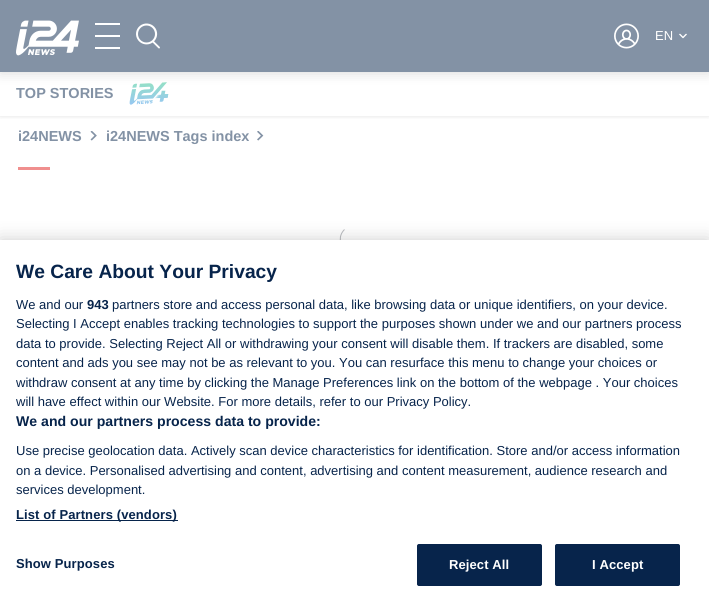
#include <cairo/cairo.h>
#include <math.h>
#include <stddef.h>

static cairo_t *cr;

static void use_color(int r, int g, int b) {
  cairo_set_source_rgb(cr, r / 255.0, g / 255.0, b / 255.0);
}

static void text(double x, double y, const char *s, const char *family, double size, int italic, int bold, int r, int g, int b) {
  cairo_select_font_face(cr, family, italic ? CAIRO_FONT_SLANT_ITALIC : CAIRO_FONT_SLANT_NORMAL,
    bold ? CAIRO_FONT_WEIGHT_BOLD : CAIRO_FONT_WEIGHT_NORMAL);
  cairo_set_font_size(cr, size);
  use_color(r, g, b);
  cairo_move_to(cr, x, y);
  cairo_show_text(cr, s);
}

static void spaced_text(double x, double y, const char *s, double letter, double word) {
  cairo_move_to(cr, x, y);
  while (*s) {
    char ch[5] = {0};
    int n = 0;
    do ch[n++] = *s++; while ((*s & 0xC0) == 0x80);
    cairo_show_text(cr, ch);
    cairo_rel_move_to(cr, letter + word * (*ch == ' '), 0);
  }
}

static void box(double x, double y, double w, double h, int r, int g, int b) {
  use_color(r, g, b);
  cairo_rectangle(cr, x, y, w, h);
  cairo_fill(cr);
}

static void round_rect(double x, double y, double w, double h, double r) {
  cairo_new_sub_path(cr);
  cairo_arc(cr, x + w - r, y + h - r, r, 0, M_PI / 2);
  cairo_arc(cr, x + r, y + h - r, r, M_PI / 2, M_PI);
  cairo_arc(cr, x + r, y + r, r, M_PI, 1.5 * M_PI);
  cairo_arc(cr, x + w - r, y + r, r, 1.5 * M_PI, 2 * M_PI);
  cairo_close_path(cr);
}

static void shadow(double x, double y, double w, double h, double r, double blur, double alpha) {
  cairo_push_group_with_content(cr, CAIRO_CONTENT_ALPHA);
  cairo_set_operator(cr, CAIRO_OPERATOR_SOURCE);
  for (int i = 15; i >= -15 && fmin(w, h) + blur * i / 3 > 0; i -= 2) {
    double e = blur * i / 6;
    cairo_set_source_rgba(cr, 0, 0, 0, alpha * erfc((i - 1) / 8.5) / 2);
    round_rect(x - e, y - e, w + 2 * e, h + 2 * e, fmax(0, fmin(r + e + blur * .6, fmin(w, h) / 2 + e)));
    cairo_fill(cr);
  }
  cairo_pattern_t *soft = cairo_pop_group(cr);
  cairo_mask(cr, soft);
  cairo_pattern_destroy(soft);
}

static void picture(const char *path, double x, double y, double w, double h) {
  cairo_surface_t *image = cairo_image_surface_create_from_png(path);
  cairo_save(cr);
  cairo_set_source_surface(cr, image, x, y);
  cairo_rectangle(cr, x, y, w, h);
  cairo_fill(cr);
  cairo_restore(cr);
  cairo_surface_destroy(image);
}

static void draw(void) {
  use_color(255, 255, 255);
  cairo_paint(cr);
  cairo_save(cr);
  cairo_rectangle(cr, 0, 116, 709, 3);
  cairo_clip(cr);
  use_color(128, 128, 128);
  shadow(0, 72, 709, 44, 0, 2.5, 0.25);
  cairo_restore(cr);
  picture("img_05.png", 129, 82, 40, 23);
  use_color(128, 128, 128);
  shadow(0, 2, 709, 72, 0, 6, 0.25);
  box(0, 0, 709, 72, 131, 146, 165);
  picture("img_01.png", 16, 20, 63, 36);
  box(95, 23, 25, 2, 255, 255, 255);
  box(95, 35, 25, 2, 255, 255, 255);
  box(95, 47, 25, 2, 255, 255, 255);
  picture("img_02.png", 136, 23, 24, 26);
  picture("img_03.png", 614, 23, 25, 26);
  picture("img_04.png", 679, 33, 8, 6);
  picture("img_06.png", 90, 131, 7, 10);
  picture("img_07.png", 257, 131, 7, 10);
  box(18, 167, 32, 3, 240, 143, 142);
  cairo_new_path(cr);
  cairo_move_to(cr, 364.5, 249.5);
  cairo_curve_to(cr, 351.5, 262.5, 331.5, 242.5, 344.5, 229.5);
  use_color(185, 187, 191);
  cairo_set_line_width(cr, 1);
  cairo_stroke(cr);
  use_color(0, 0, 0);
  shadow(0, 240, 709, 368, 0, 9, 0.2);
  box(0, 240, 709, 368, 255, 255, 255);
  box(16, 520, 162, 1, 7, 36, 75);
  round_rect(417.5, 544.5, 124, 41, 1.5);
  cairo_fill_preserve(cr);
  cairo_stroke(cr);
  round_rect(555.5, 544.5, 124, 41, 1.5);
  cairo_fill_preserve(cr);
  cairo_stroke(cr);
  text(655, 40, "EN", "Liberation Sans", 13, 0, 0, 255, 255, 255);
  text(16, 98, "TOP STORIES", "Liberation Sans", 14.5, 0, 1, 131, 146, 165);
  text(18, 141, "i24NEWS", "Liberation Sans", 14.5, 0, 1, 131, 146, 165);
  text(106, 141, "i24NEWS Tags index", "Liberation Sans", 14.5, 0, 1, 131, 146, 165);
  text(16, 278, "We Care About Your Privacy", "Liberation Sans", 19.25, 0, 1, 7, 36, 75);
  text(16, 309, "We and our", "Liberation Sans", 13, 0, 0, 7, 36, 75);
  text(87, 309, "943", "Liberation Sans", 13, 0, 1, 7, 36, 75);
  text(112, 309, "partners store and access personal data, like browsing data or unique identifiers, on your device.", "Liberation Sans", 13, 0, 0, 7, 36, 75);
  text(16, 328, "Selecting I Accept enables tracking technologies to support the purposes shown under we and our partners process", "Liberation Sans", 13, 0, 0, 7, 36, 75);
  text(16, 348, "data to provide. Selecting Reject All or withdrawing your consent will disable them. If trackers are disabled, some", "Liberation Sans", 13, 0, 0, 7, 36, 75);
  text(16, 367, "content and ads you see may not be as relevant to you. You can resurface this menu to change your choices or", "Liberation Sans", 13, 0, 0, 7, 36, 75);
  text(16, 387, "withdraw consent at any time by clicking the Manage Preferences link on the bottom of the webpage . Your choices", "Liberation Sans", 13, 0, 0, 7, 36, 75);
  text(16, 406, "will have effect within our Website. For more details, refer to our Privacy Policy.", "Liberation Sans", 13, 0, 0, 7, 36, 75);
  text(16, 426, "We and our partners process data to provide:", "Liberation Sans", 14.1, 0, 1, 7, 36, 75);
  text(16, 455, "Use precise geolocation data. Actively scan device characteristics for identification. Store and/or access information", "Liberation Sans", 13, 0, 0, 7, 36, 75);
  text(16, 475, "on a device. Personalised advertising and content, advertising and content measurement, audience research and", "Liberation Sans", 13, 0, 0, 7, 36, 75);
  text(16, 494, "services development.", "Liberation Sans", 13, 0, 0, 7, 36, 75);
  cairo_select_font_face(cr, "Liberation Sans", CAIRO_FONT_SLANT_NORMAL, CAIRO_FONT_WEIGHT_BOLD);
  spaced_text(16, 519, "List of Partners (vendors)", 0.1, 0);
  spaced_text(16, 568, "Show Purposes", 0.1, 0);
  use_color(255, 255, 255);
  spaced_text(449, 569, "Reject All", 0.1, 0);
  spaced_text(592, 569, "I Accept", 0.1, 0);
}

int main(void) {
  cairo_surface_t *surface = cairo_image_surface_create(CAIRO_FORMAT_RGB24, 709, 608);
  cr = cairo_create(surface);
  cairo_font_options_t *options = cairo_font_options_create();
  cairo_font_options_set_hint_metrics(options, CAIRO_HINT_METRICS_OFF);
  cairo_font_options_set_hint_style(options, CAIRO_HINT_STYLE_NONE);
  cairo_set_font_options(cr, options);
  cairo_set_miter_limit(cr, 4);
  draw();
  cairo_surface_write_to_png(surface, "out.png");
  cairo_font_options_destroy(options);
  cairo_destroy(cr);
  cairo_surface_destroy(surface);
  return 0;
}
